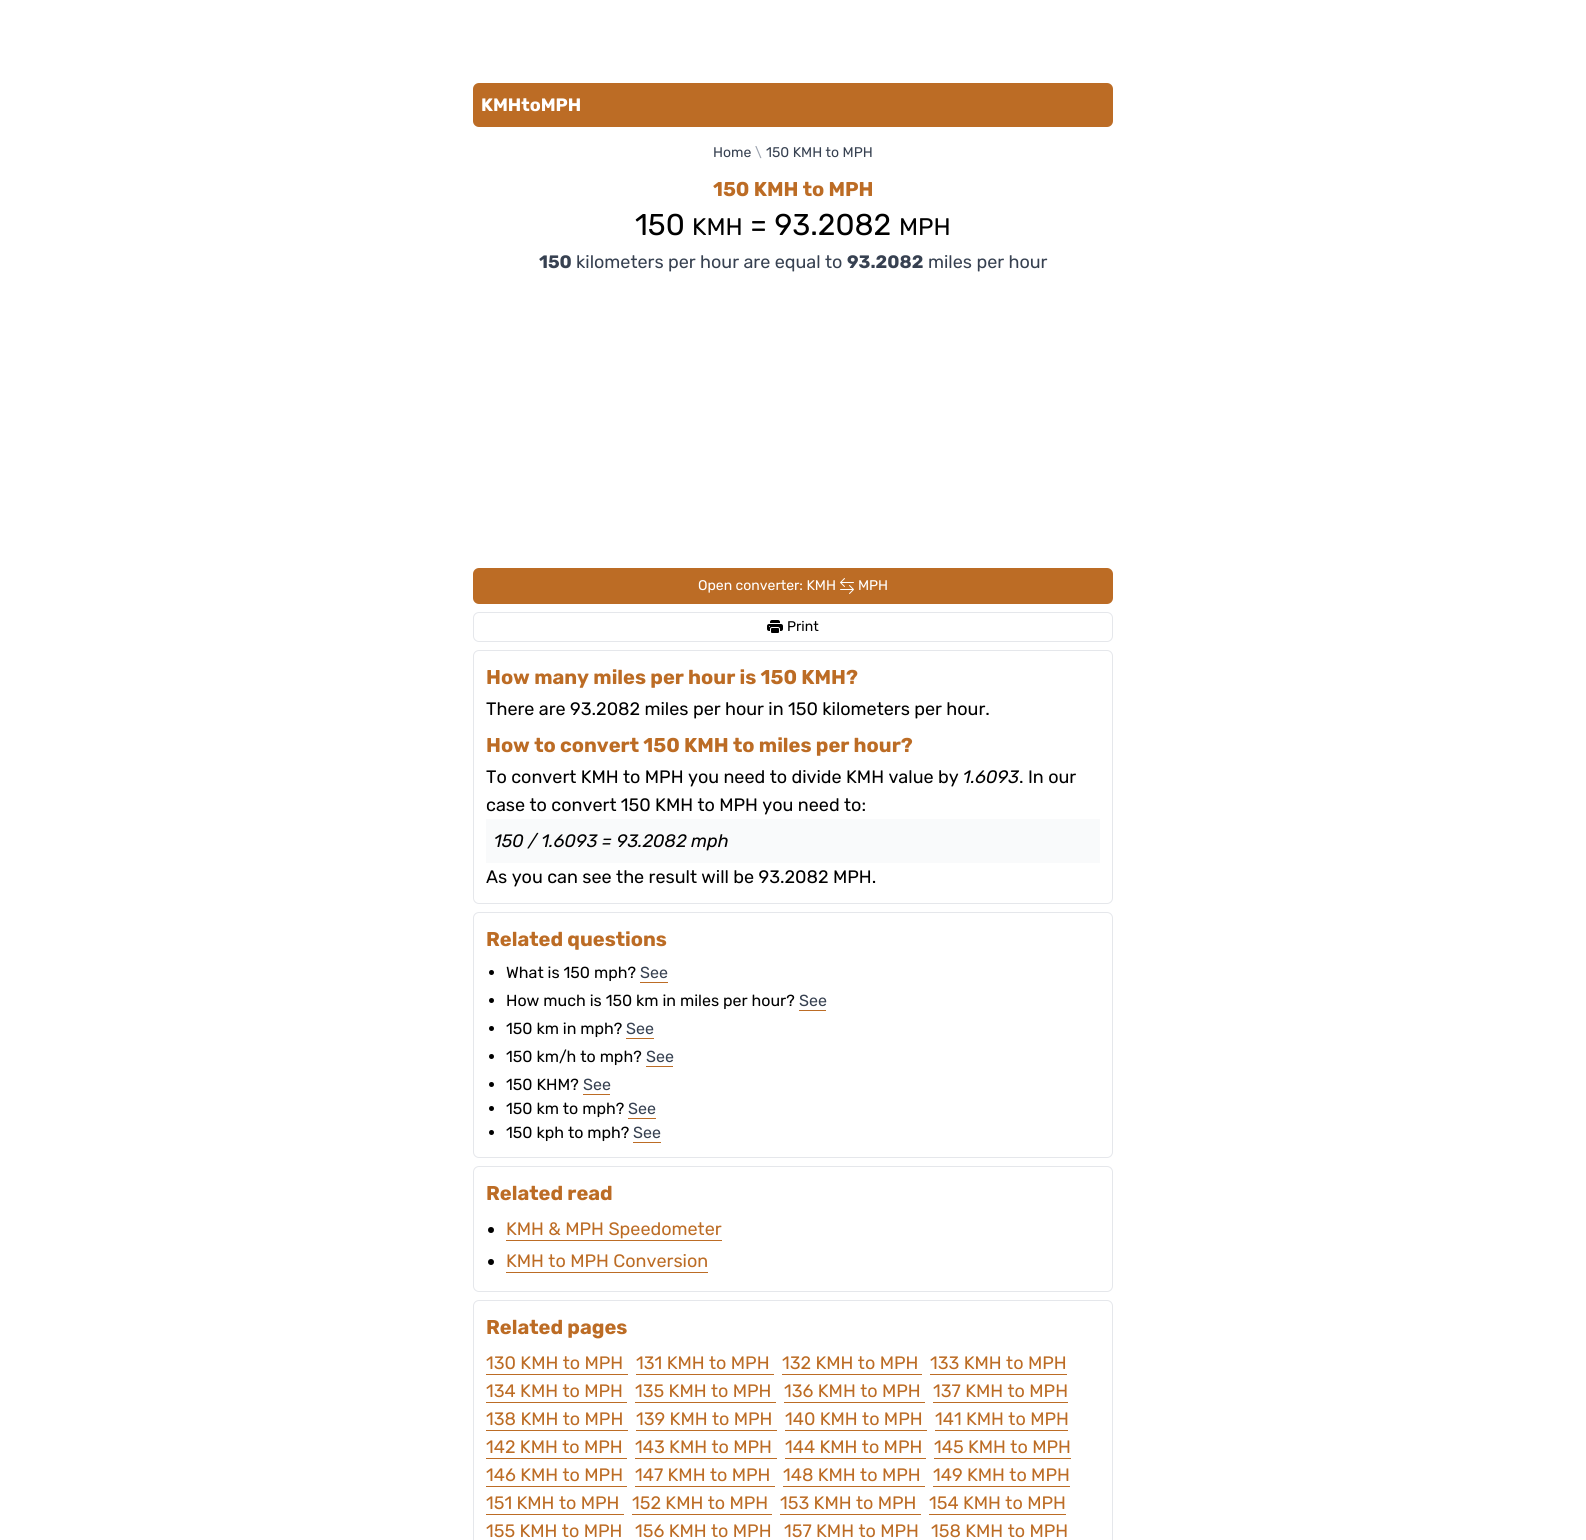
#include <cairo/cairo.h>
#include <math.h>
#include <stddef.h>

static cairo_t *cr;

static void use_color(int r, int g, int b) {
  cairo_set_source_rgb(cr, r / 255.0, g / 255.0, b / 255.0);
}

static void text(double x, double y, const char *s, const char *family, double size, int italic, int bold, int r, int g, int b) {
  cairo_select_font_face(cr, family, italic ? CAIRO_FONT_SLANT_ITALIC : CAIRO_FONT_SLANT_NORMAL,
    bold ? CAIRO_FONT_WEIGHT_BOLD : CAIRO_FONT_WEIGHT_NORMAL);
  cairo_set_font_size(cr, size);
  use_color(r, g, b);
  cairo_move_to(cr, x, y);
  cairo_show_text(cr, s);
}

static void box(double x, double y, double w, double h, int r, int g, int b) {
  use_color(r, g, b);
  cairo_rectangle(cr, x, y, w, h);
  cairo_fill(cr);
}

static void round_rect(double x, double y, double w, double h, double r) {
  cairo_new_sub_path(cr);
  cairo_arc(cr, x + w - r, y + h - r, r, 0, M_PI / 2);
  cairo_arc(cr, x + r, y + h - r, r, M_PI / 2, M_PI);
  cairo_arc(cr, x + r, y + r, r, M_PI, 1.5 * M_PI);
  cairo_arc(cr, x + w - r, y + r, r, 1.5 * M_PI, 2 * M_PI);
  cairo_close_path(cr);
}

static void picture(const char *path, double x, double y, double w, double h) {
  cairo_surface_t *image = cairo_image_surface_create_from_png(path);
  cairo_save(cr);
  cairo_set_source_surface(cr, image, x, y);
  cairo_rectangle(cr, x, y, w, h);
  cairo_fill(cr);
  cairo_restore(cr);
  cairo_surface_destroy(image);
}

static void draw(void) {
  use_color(255, 255, 255);
  cairo_paint(cr);
  use_color(188, 108, 37);
  round_rect(473, 83, 640, 44, 6);
  cairo_fill(cr);
  round_rect(473, 568, 640, 36, 6);
  cairo_fill(cr);
  picture("img_01.png", 840, 578, 14, 16);
  round_rect(473.5, 612.5, 639, 29, 5.5);
  use_color(229, 231, 235);
  cairo_set_line_width(cr, 1);
  cairo_stroke(cr);
  picture("img_02.png", 767, 620, 16, 13);
  round_rect(473.5, 650.5, 639, 253, 5.5);
  cairo_stroke(cr);
  box(486, 819, 614, 44, 249, 250, 251);
  round_rect(473.5, 912.5, 639, 245, 5.5);
  use_color(229, 231, 235);
  cairo_stroke(cr);
  use_color(0, 0, 0);
  cairo_arc(cr, 491.5, 972.5, 2.5, 0, 2 * M_PI);
  cairo_fill(cr);
  box(640, 982, 28, 1, 188, 108, 37);
  use_color(0, 0, 0);
  cairo_arc(cr, 491.5, 1000.5, 2.5, 0, 2 * M_PI);
  cairo_fill(cr);
  box(799, 1010, 27, 1, 188, 108, 37);
  use_color(0, 0, 0);
  cairo_arc(cr, 491.5, 1028.5, 2.5, 0, 2 * M_PI);
  cairo_fill(cr);
  box(626, 1038, 28, 1, 188, 108, 37);
  use_color(0, 0, 0);
  cairo_arc(cr, 491.5, 1056.5, 2.5, 0, 2 * M_PI);
  cairo_fill(cr);
  box(646, 1066, 27, 1, 188, 108, 37);
  use_color(0, 0, 0);
  cairo_arc(cr, 491.5, 1084.5, 2.5, 0, 2 * M_PI);
  cairo_fill(cr);
  box(583, 1094, 27, 1, 188, 108, 37);
  use_color(0, 0, 0);
  cairo_arc(cr, 491.5, 1108.5, 2.5, 0, 2 * M_PI);
  cairo_fill(cr);
  box(628, 1118, 28, 1, 188, 108, 37);
  use_color(0, 0, 0);
  cairo_arc(cr, 491.5, 1132.5, 2.5, 0, 2 * M_PI);
  cairo_fill(cr);
  box(633, 1142, 28, 1, 188, 108, 37);
  round_rect(473.5, 1166.5, 639, 125, 5.5);
  use_color(229, 231, 235);
  cairo_stroke(cr);
  use_color(0, 0, 0);
  cairo_arc(cr, 491, 1230, 3, 0, 2 * M_PI);
  cairo_fill(cr);
  box(506, 1240, 216, 1, 188, 108, 37);
  use_color(0, 0, 0);
  cairo_arc(cr, 491, 1262, 3, 0, 2 * M_PI);
  cairo_fill(cr);
  box(506, 1272, 202, 1, 188, 108, 37);
  round_rect(473.5, 1300.5, 639, 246, 5.5);
  use_color(229, 231, 235);
  cairo_stroke(cr);
  box(486, 1374, 142, 1, 188, 108, 37);
  box(636, 1374, 138, 1, 188, 108, 37);
  box(782, 1374, 140, 1, 188, 108, 37);
  box(930, 1374, 137, 1, 188, 108, 37);
  box(486, 1402, 141, 1, 188, 108, 37);
  box(635, 1402, 141, 1, 188, 108, 37);
  box(784, 1402, 141, 1, 188, 108, 37);
  box(933, 1402, 135, 1, 188, 108, 37);
  box(486, 1430, 142, 1, 188, 108, 37);
  box(636, 1430, 141, 1, 188, 108, 37);
  box(785, 1430, 142, 1, 188, 108, 37);
  box(935, 1430, 133, 1, 188, 108, 37);
  box(486, 1458, 141, 1, 188, 108, 37);
  box(635, 1458, 142, 1, 188, 108, 37);
  box(785, 1458, 141, 1, 188, 108, 37);
  box(934, 1458, 137, 1, 188, 108, 37);
  box(486, 1486, 141, 1, 188, 108, 37);
  box(635, 1486, 140, 1, 188, 108, 37);
  box(783, 1486, 142, 1, 188, 108, 37);
  box(933, 1486, 137, 1, 188, 108, 37);
  box(486, 1514, 138, 1, 188, 108, 37);
  box(632, 1514, 140, 1, 188, 108, 37);
  box(780, 1514, 141, 1, 188, 108, 37);
  box(929, 1514, 137, 1, 188, 108, 37);
  text(481, 111, "KMHtoMPH", "Rubik", 18, 0, 1, 255, 255, 255);
  text(713, 157, "Home", "Rubik", 14, 0, 0, 55, 65, 81);
  text(755, 157, "\\", "Rubik", 14, 0, 0, 156, 163, 175);
  text(766, 157, "150 KMH to MPH", "Rubik", 14, 0, 0, 55, 65, 81);
  text(713, 196, "150 KMH to MPH", "Rubik", 20, 0, 1, 188, 108, 37);
  text(635, 235, "150", "Rubik", 30, 0, 0, 0, 0, 0);
  text(692, 235, "KMH", "Rubik", 24, 0, 0, 0, 0, 0);
  text(750, 235, "= 93.2082", "Rubik", 30, 0, 0, 0, 0, 0);
  text(899, 235, "MPH", "Rubik", 24, 0, 0, 0, 0, 0);
  text(539, 268, "150", "Rubik", 18, 0, 1, 55, 65, 81);
  text(576, 268, "kilometers per hour are equal to", "Rubik", 18, 0, 0, 55, 65, 81);
  text(847, 268, "93.2082", "Rubik", 18, 0, 1, 55, 65, 81);
  text(928, 268, "miles per hour", "Rubik", 18, 0, 0, 55, 65, 81);
  text(698, 590, "Open converter: KMH", "Rubik", 14, 0, 0, 255, 255, 255);
  text(858, 590, "MPH", "Rubik", 14, 0, 0, 255, 255, 255);
  text(787, 631, "Print", "Rubik", 14, 0, 0, 0, 0, 0);
  text(486, 684, "How many miles per hour is 150 KMH?", "Rubik", 20, 0, 1, 188, 108, 37);
  text(486, 715, "There are 93.2082 miles per hour in 150 kilometers per hour.", "Rubik", 18, 0, 0, 0, 0, 0);
  text(486, 752, "How to convert 150 KMH to miles per hour?", "Rubik", 20, 0, 1, 188, 108, 37);
  text(486, 783, "To convert KMH to MPH you need to divide KMH value by", "Rubik", 18, 0, 0, 0, 0, 0);
  text(963, 783, "1.6093", "Rubik Light", 18, 1, 0, 0, 0, 0);
  text(1019, 783, ". In our", "Rubik", 18, 0, 0, 0, 0, 0);
  text(486, 811, "case to convert 150 KMH to MPH you need to:", "Rubik", 18, 0, 0, 0, 0, 0);
  text(494, 847, "150 / 1.6093 = 93.2082 mph", "Rubik Light", 18, 1, 0, 0, 0, 0);
  text(486, 883, "As you can see the result will be 93.2082 MPH.", "Rubik", 18, 0, 0, 0, 0, 0);
  text(486, 946, "Related questions", "Rubik", 20, 0, 1, 188, 108, 37);
  text(506, 978, "What is 150 mph?", "Rubik", 16, 0, 0, 0, 0, 0);
  text(640, 978, "See", "Rubik", 16, 0, 0, 55, 65, 81);
  text(506, 1006, "How much is 150 km in miles per hour?", "Rubik", 16, 0, 0, 0, 0, 0);
  text(799, 1006, "See", "Rubik", 16, 0, 0, 55, 65, 81);
  text(506, 1034, "150 km in mph?", "Rubik", 16, 0, 0, 0, 0, 0);
  text(626, 1034, "See", "Rubik", 16, 0, 0, 55, 65, 81);
  text(506, 1062, "150 km/h to mph?", "Rubik", 16, 0, 0, 0, 0, 0);
  text(646, 1062, "See", "Rubik", 16, 0, 0, 55, 65, 81);
  text(506, 1090, "150 KHM?", "Rubik", 16, 0, 0, 0, 0, 0);
  text(583, 1090, "See", "Rubik", 16, 0, 0, 55, 65, 81);
  text(506, 1114, "150 km to mph?", "Rubik", 16, 0, 0, 0, 0, 0);
  text(628, 1114, "See", "Rubik", 16, 0, 0, 55, 65, 81);
  text(506, 1138, "150 kph to mph?", "Rubik", 16, 0, 0, 0, 0, 0);
  text(633, 1138, "See", "Rubik", 16, 0, 0, 55, 65, 81);
  text(486, 1200, "Related read", "Rubik", 20, 0, 1, 188, 108, 37);
  text(506, 1235, "KMH & MPH Speedometer", "Rubik", 18, 0, 0, 188, 108, 37);
  text(506, 1267, "KMH to MPH Conversion", "Rubik", 18, 0, 0, 188, 108, 37);
  text(486, 1334, "Related pages", "Rubik", 20, 0, 1, 188, 108, 37);
  text(486, 1369, "130 KMH to MPH", "Rubik", 18, 0, 0, 188, 108, 37);
  text(636, 1369, "131 KMH to MPH", "Rubik", 18, 0, 0, 188, 108, 37);
  text(782, 1369, "132 KMH to MPH", "Rubik", 18, 0, 0, 188, 108, 37);
  text(930, 1369, "133 KMH to MPH", "Rubik", 18, 0, 0, 188, 108, 37);
  text(486, 1397, "134 KMH to MPH", "Rubik", 18, 0, 0, 188, 108, 37);
  text(635, 1397, "135 KMH to MPH", "Rubik", 18, 0, 0, 188, 108, 37);
  text(784, 1397, "136 KMH to MPH", "Rubik", 18, 0, 0, 188, 108, 37);
  text(933, 1397, "137 KMH to MPH", "Rubik", 18, 0, 0, 188, 108, 37);
  text(486, 1425, "138 KMH to MPH", "Rubik", 18, 0, 0, 188, 108, 37);
  text(636, 1425, "139 KMH to MPH", "Rubik", 18, 0, 0, 188, 108, 37);
  text(785, 1425, "140 KMH to MPH", "Rubik", 18, 0, 0, 188, 108, 37);
  text(935, 1425, "141 KMH to MPH", "Rubik", 18, 0, 0, 188, 108, 37);
  text(486, 1453, "142 KMH to MPH", "Rubik", 18, 0, 0, 188, 108, 37);
  text(635, 1453, "143 KMH to MPH", "Rubik", 18, 0, 0, 188, 108, 37);
  text(785, 1453, "144 KMH to MPH", "Rubik", 18, 0, 0, 188, 108, 37);
  text(934, 1453, "145 KMH to MPH", "Rubik", 18, 0, 0, 188, 108, 37);
  text(486, 1481, "146 KMH to MPH", "Rubik", 18, 0, 0, 188, 108, 37);
  text(635, 1481, "147 KMH to MPH", "Rubik", 18, 0, 0, 188, 108, 37);
  text(783, 1481, "148 KMH to MPH", "Rubik", 18, 0, 0, 188, 108, 37);
  text(933, 1481, "149 KMH to MPH", "Rubik", 18, 0, 0, 188, 108, 37);
  text(486, 1509, "151 KMH to MPH", "Rubik", 18, 0, 0, 188, 108, 37);
  text(632, 1509, "152 KMH to MPH", "Rubik", 18, 0, 0, 188, 108, 37);
  text(780, 1509, "153 KMH to MPH", "Rubik", 18, 0, 0, 188, 108, 37);
  text(929, 1509, "154 KMH to MPH", "Rubik", 18, 0, 0, 188, 108, 37);
  text(486, 1537, "155 KMH to MPH", "Rubik", 18, 0, 0, 188, 108, 37);
  text(635, 1537, "156 KMH to MPH", "Rubik", 18, 0, 0, 188, 108, 37);
  text(784, 1537, "157 KMH to MPH", "Rubik", 18, 0, 0, 188, 108, 37);
  text(931, 1537, "158 KMH to MPH", "Rubik", 18, 0, 0, 188, 108, 37);
}

int main(void) {
  cairo_surface_t *surface = cairo_image_surface_create(CAIRO_FORMAT_RGB24, 1586, 1540);
  cr = cairo_create(surface);
  cairo_font_options_t *options = cairo_font_options_create();
  cairo_font_options_set_hint_metrics(options, CAIRO_HINT_METRICS_OFF);
  cairo_font_options_set_hint_style(options, CAIRO_HINT_STYLE_NONE);
  cairo_set_font_options(cr, options);
  cairo_set_miter_limit(cr, 4);
  draw();
  cairo_surface_write_to_png(surface, "out.png");
  cairo_font_options_destroy(options);
  cairo_destroy(cr);
  cairo_surface_destroy(surface);
  return 0;
}
